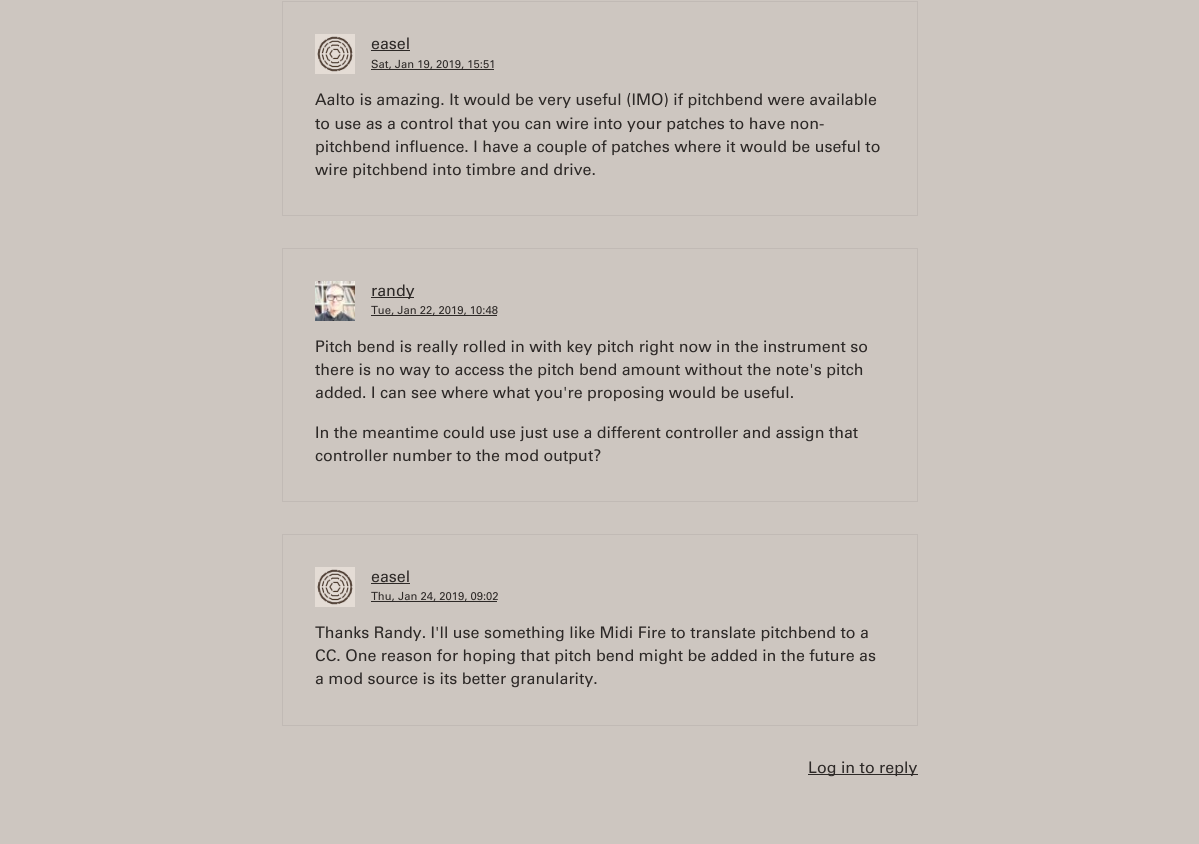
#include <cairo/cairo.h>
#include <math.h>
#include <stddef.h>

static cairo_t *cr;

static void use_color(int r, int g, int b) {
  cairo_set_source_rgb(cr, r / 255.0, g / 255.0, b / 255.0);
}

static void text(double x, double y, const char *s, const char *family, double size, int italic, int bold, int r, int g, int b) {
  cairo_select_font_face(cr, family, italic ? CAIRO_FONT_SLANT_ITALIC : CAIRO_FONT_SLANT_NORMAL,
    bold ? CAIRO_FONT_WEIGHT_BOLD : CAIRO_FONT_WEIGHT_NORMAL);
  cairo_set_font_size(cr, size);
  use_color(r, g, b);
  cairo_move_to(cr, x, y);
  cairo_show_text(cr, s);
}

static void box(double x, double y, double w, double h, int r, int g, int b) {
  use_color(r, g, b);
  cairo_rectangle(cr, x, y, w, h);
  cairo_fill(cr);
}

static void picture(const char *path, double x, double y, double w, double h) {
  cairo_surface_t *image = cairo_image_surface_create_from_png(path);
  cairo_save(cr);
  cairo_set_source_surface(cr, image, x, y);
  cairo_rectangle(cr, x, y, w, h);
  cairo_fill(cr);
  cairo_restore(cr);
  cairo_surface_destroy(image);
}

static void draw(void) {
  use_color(205, 198, 192);
  cairo_paint(cr);
  cairo_rectangle(cr, 282.5, 1.5, 635, 214);
  use_color(193, 186, 181);
  cairo_set_line_width(cr, 1);
  cairo_stroke(cr);
  picture("img_01.png", 315, 34, 40, 40);
  box(371, 50, 39, 1, 45, 41, 39);
  box(371, 69, 123, 1, 45, 41, 39);
  cairo_rectangle(cr, 282.5, 248.5, 635, 253);
  use_color(193, 186, 181);
  cairo_stroke(cr);
  picture("img_02.png", 315, 281, 40, 40);
  box(371, 297, 43, 1, 45, 41, 39);
  box(371, 315, 126, 1, 45, 41, 39);
  cairo_rectangle(cr, 282.5, 534.5, 635, 191);
  use_color(193, 186, 181);
  cairo_stroke(cr);
  picture("img_01.png", 315, 567, 40, 40);
  box(371, 583, 39, 1, 45, 41, 39);
  box(371, 601, 126, 1, 45, 41, 39);
  box(808, 774, 110, 1, 45, 41, 39);
  text(371, 49, "easel", "Univers", 16, 0, 0, 45, 41, 39);
  text(371, 68, "Sat, Jan 19, 2019, 15:51", "Univers", 11.25, 0, 0, 45, 41, 39);
  text(315, 105, "Aalto is amazing. It would be very useful (IMO) if pitchbend were available", "Univers", 16, 0, 0, 45, 41, 39);
  text(315, 129, "to use as a control that you can wire into your patches to have non-", "Univers", 16, 0, 0, 45, 41, 39);
  text(315, 152, "pitchbend influence. I have a couple of patches where it would be useful to", "Univers", 16, 0, 0, 45, 41, 39);
  text(315, 175, "wire pitchbend into timbre and drive.", "Univers", 16, 0, 0, 45, 41, 39);
  text(371, 296, "randy", "Univers", 16, 0, 0, 45, 41, 39);
  text(371, 314, "Tue, Jan 22, 2019, 10:48", "Univers", 11.25, 0, 0, 45, 41, 39);
  text(315, 352, "Pitch bend is really rolled in with key pitch right now in the instrument so", "Univers", 16, 0, 0, 45, 41, 39);
  text(315, 375, "there is no way to access the pitch bend amount without the note's pitch", "Univers", 16, 0, 0, 45, 41, 39);
  text(315, 398, "added. I can see where what you're proposing would be useful.", "Univers", 16, 0, 0, 45, 41, 39);
  text(315, 438, "In the meantime could use just use a different controller and assign that", "Univers", 16, 0, 0, 45, 41, 39);
  text(315, 461, "controller number to the mod output?", "Univers", 16, 0, 0, 45, 41, 39);
  text(371, 582, "easel", "Univers", 16, 0, 0, 45, 41, 39);
  text(371, 600, "Thu, Jan 24, 2019, 09:02", "Univers", 11.25, 0, 0, 45, 41, 39);
  text(315, 638, "Thanks Randy. I'll use something like Midi Fire to translate pitchbend to a", "Univers", 16, 0, 0, 45, 41, 39);
  text(315, 661, "CC. One reason for hoping that pitch bend might be added in the future as", "Univers", 16, 0, 0, 45, 41, 39);
  text(315, 684, "a mod source is its better granularity.", "Univers", 16, 0, 0, 45, 41, 39);
  text(808, 773, "Log in to reply", "Univers", 16, 0, 0, 45, 41, 39);
}

int main(void) {
  cairo_surface_t *surface = cairo_image_surface_create(CAIRO_FORMAT_RGB24, 1199, 844);
  cr = cairo_create(surface);
  cairo_font_options_t *options = cairo_font_options_create();
  cairo_font_options_set_hint_metrics(options, CAIRO_HINT_METRICS_OFF);
  cairo_font_options_set_hint_style(options, CAIRO_HINT_STYLE_NONE);
  cairo_set_font_options(cr, options);
  cairo_set_miter_limit(cr, 4);
  draw();
  cairo_surface_write_to_png(surface, "out.png");
  cairo_font_options_destroy(options);
  cairo_destroy(cr);
  cairo_surface_destroy(surface);
  return 0;
}
